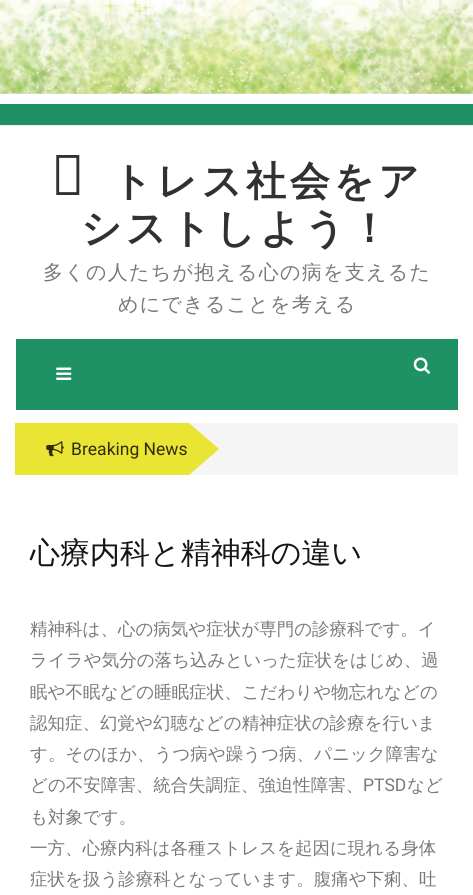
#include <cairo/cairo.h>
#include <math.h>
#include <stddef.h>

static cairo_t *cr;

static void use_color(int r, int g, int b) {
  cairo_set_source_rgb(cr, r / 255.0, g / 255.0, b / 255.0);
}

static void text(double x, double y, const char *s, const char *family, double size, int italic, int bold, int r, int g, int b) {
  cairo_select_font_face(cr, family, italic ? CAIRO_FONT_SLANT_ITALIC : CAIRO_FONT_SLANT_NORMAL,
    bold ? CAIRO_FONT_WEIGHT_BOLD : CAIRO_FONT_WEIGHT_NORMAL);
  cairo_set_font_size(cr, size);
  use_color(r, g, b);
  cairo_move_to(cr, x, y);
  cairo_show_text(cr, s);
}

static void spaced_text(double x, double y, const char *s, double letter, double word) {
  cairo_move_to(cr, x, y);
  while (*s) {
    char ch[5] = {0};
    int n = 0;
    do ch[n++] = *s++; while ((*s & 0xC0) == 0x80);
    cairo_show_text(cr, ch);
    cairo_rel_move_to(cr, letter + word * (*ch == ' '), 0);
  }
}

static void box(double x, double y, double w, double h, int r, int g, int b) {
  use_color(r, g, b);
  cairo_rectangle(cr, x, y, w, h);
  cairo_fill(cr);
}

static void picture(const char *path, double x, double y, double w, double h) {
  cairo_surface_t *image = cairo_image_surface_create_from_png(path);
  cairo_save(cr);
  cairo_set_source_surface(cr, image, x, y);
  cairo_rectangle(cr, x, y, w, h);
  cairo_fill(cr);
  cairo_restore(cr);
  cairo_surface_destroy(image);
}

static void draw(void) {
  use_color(255, 255, 255);
  cairo_paint(cr);
  picture("img_01.png", 0, 0, 473, 94);
  box(0, 104, 473, 21, 30, 146, 101);
  box(0, 125, 473, 1, 241, 241, 241);
  box(16, 339, 442, 71, 30, 146, 101);
  picture("img_02.png", 56, 367, 16, 13);
  picture("img_03.png", 413, 357, 17, 17);
  box(189, 423, 269, 52, 245, 245, 245);
  use_color(234, 228, 52);
  cairo_new_path(cr);
  cairo_move_to(cr, 15, 423);
  cairo_line_to(cr, 15, 475);
  cairo_line_to(cr, 189, 475);
  cairo_line_to(cr, 219, 449);
  cairo_line_to(cr, 189, 423);
  cairo_close_path(cr);
  cairo_fill(cr);
  picture("img_04.png", 46, 441, 18, 16);
  cairo_select_font_face(cr, "Noto Sans Thin", CAIRO_FONT_SLANT_NORMAL, CAIRO_FONT_WEIGHT_NORMAL);
  cairo_set_font_size(cr, 56);
  use_color(49, 49, 49);
  spaced_text(51, 195, "ス", 3.75, 0);
  cairo_select_font_face(cr, "WenQuanYi Zen Hei", CAIRO_FONT_SLANT_NORMAL, CAIRO_FONT_WEIGHT_BOLD);
  cairo_set_font_size(cr, 40);
  spaced_text(112, 195, "トレス社会をア", 3.75, 0);
  spaced_text(81, 242, "シストしよう！", 3.75, 0);
  cairo_select_font_face(cr, "WenQuanYi Zen Hei Medium", CAIRO_FONT_SLANT_NORMAL, CAIRO_FONT_WEIGHT_NORMAL);
  cairo_set_font_size(cr, 20);
  use_color(121, 121, 121);
  spaced_text(43, 279, "多くの人たちが抱える心の病を支えるた", 1.25, 0);
  spaced_text(118, 311, "めにできることを考える", 1.25, 0);
  text(71, 455, "Breaking News", "Roboto", 17.5, 0, 0, 47, 46, 10);
  text(30, 563, "心療内科と精神科の違い", "WenQuanYi Zen Hei Medium", 30, 0, 0, 21, 21, 21);
  text(30, 635, "精神科は、心の病気や症状が専門の診療科です。イ", "WenQuanYi Zen Hei Medium", 17.5, 0, 0, 121, 121, 121);
  text(30, 666, "ライラや気分の落ち込みといった症状をはじめ、過", "WenQuanYi Zen Hei Medium", 17.5, 0, 0, 121, 121, 121);
  text(30, 698, "眠や不眠などの睡眠症状、こだわりや物忘れなどの", "WenQuanYi Zen Hei Medium", 17.5, 0, 0, 121, 121, 121);
  text(30, 729, "認知症、幻覚や幻聴などの精神症状の診療を行いま", "WenQuanYi Zen Hei Medium", 17.5, 0, 0, 121, 121, 121);
  text(30, 760, "す。そのほか、うつ病や躁うつ病、パニック障害な", "WenQuanYi Zen Hei Medium", 17.5, 0, 0, 121, 121, 121);
  text(30, 791, "どの不安障害、統合失調症、強迫性障害、", "WenQuanYi Zen Hei Medium", 17.5, 0, 0, 121, 121, 121);
  text(363, 791, "PTSD", "Roboto", 17.5, 0, 0, 121, 121, 121);
  text(407, 791, "など", "WenQuanYi Zen Hei Medium", 17.5, 0, 0, 121, 121, 121);
  text(30, 823, "も対象です。", "WenQuanYi Zen Hei Medium", 17.5, 0, 0, 121, 121, 121);
  text(30, 854, "一方、心療内科は各種ストレスを起因に現れる身体", "WenQuanYi Zen Hei Medium", 17.5, 0, 0, 121, 121, 121);
  text(30, 885, "症状を扱う診療科となっています。腹痛や下痢、吐", "WenQuanYi Zen Hei Medium", 17.5, 0, 0, 121, 121, 121);
}

int main(void) {
  cairo_surface_t *surface = cairo_image_surface_create(CAIRO_FORMAT_RGB24, 473, 895);
  cr = cairo_create(surface);
  cairo_font_options_t *options = cairo_font_options_create();
  cairo_font_options_set_hint_metrics(options, CAIRO_HINT_METRICS_OFF);
  cairo_font_options_set_hint_style(options, CAIRO_HINT_STYLE_NONE);
  cairo_set_font_options(cr, options);
  cairo_set_miter_limit(cr, 4);
  draw();
  cairo_surface_write_to_png(surface, "out.png");
  cairo_font_options_destroy(options);
  cairo_destroy(cr);
  cairo_surface_destroy(surface);
  return 0;
}
